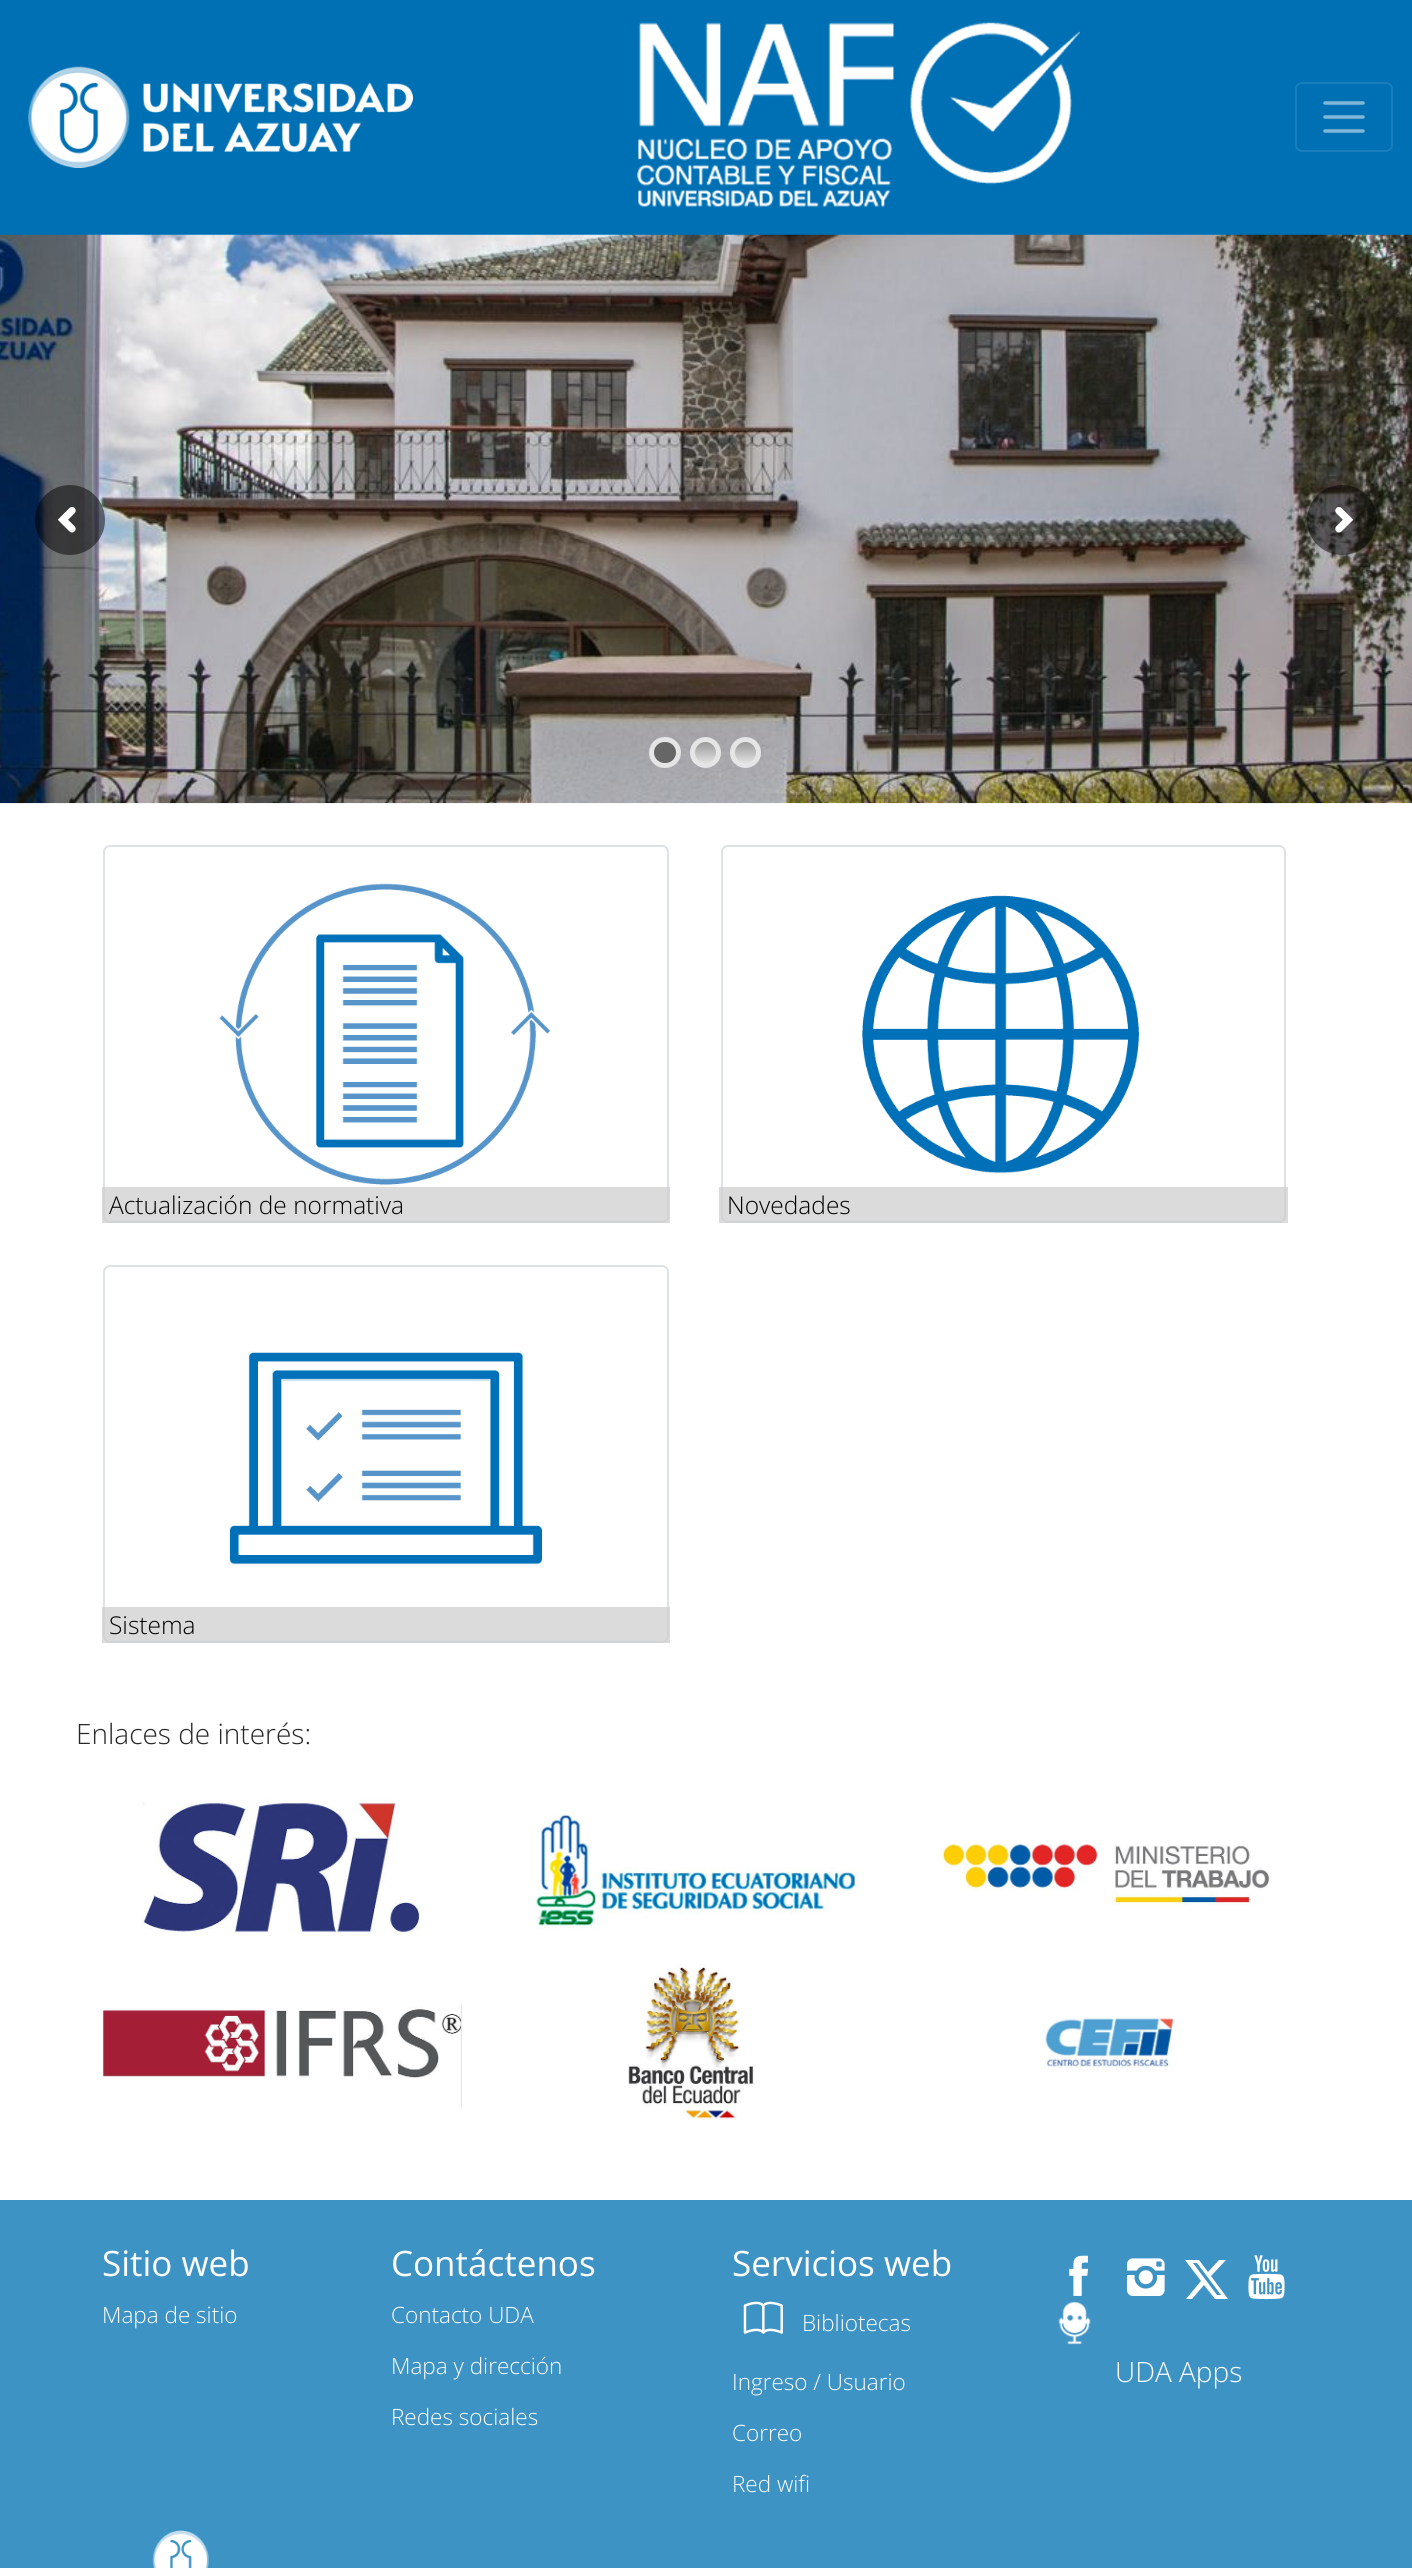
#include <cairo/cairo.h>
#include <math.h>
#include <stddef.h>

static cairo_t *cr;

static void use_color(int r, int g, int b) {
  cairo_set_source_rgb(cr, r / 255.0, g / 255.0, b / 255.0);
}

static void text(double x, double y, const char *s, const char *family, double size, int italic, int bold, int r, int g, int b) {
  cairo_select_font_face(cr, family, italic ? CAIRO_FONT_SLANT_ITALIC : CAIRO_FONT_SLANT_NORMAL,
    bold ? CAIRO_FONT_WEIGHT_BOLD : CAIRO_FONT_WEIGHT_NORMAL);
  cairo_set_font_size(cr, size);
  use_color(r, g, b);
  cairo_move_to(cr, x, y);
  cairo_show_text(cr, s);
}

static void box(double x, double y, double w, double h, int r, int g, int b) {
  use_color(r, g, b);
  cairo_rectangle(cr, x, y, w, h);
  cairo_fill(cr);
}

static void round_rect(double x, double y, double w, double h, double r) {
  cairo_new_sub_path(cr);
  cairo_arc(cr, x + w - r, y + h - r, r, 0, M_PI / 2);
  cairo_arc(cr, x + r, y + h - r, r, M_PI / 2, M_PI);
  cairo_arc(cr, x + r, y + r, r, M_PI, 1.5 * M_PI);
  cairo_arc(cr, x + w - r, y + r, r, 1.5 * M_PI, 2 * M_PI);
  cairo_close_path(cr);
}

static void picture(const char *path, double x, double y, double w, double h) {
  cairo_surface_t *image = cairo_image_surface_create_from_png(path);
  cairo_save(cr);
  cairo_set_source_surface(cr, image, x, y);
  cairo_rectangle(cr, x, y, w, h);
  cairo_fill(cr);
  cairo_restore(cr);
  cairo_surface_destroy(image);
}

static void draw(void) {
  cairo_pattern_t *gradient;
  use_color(255, 255, 255);
  cairo_paint(cr);
  box(0, 0, 1412, 235, 0, 112, 180);
  picture("img_01.png", 28, 66, 385, 102);
  picture("img_02.png", 637, 22, 443, 185);
  round_rect(1296, 83, 96, 68, 6);
  use_color(26, 126, 188);
  cairo_stroke(cr);
  cairo_new_path(cr);
  cairo_move_to(cr, 1325, 103);
  cairo_line_to(cr, 1363, 103);
  cairo_move_to(cr, 1325, 117);
  cairo_line_to(cr, 1363, 117);
  cairo_move_to(cr, 1325, 131);
  cairo_line_to(cr, 1363, 131);
  use_color(128, 184, 218);
  cairo_set_line_width(cr, 3.5);
  cairo_set_line_cap(cr, CAIRO_LINE_CAP_ROUND);
  cairo_stroke(cr);
  picture("img_03.png", 0, 234, 1412, 570);
  cairo_set_source_rgba(cr, 0, 0, 0, 0.5);
  cairo_arc(cr, 70, 520, 35, 0, 2 * M_PI);
  cairo_fill(cr);
  picture("img_04.png", 57, 507, 19, 26);
  cairo_arc(cr, 1342, 520, 35, 0, 2 * M_PI);
  cairo_fill(cr);
  picture("img_05.png", 1335, 507, 19, 26);
  use_color(102, 102, 102);
  round_rect(651.5, 739.5, 27, 26, 13);
  cairo_fill_preserve(cr);
  use_color(229, 229, 229);
  cairo_set_line_width(cr, 5);
  cairo_set_line_cap(cr, CAIRO_LINE_CAP_BUTT);
  cairo_stroke(cr);
  cairo_save(cr);
  round_rect(690, 737, 31, 31, 15.5);
  cairo_clip(cr);
  gradient = cairo_pattern_create_linear(705, 742, 705, 763);
  cairo_pattern_add_color_stop_rgba(gradient, 0, 0.6, 0.6, 0.6, 1);
  cairo_pattern_add_color_stop_rgba(gradient, 1, 0.882, 0.882, 0.882, 1);
  cairo_set_source(cr, gradient);
  cairo_pattern_destroy(gradient);
  cairo_rectangle(cr, 690, 742, 31, 21);
  cairo_fill(cr);
  cairo_restore(cr);
  cairo_arc(cr, 705.5, 752.5, 13, 0, 2 * M_PI);
  cairo_stroke(cr);
  cairo_save(cr);
  round_rect(730, 737, 31, 31, 15.5);
  cairo_clip(cr);
  gradient = cairo_pattern_create_linear(746, 742, 746, 763);
  cairo_pattern_add_color_stop_rgba(gradient, 0, 0.6, 0.6, 0.6, 1);
  cairo_pattern_add_color_stop_rgba(gradient, 1, 0.882, 0.882, 0.882, 1);
  cairo_set_source(cr, gradient);
  cairo_pattern_destroy(gradient);
  cairo_rectangle(cr, 730, 742, 31, 21);
  cairo_fill(cr);
  cairo_restore(cr);
  cairo_arc(cr, 745.5, 752.5, 13, 0, 2 * M_PI);
  cairo_stroke(cr);
  round_rect(104, 846, 564, 376, 6);
  use_color(222, 226, 230);
  cairo_set_line_width(cr, 2);
  cairo_stroke(cr);
  picture("img_06.png", 219, 883, 332, 302);
  cairo_set_source_rgba(cr, 0.8, 0.8, 0.8, 0.71);
  cairo_rectangle(cr, 102, 1187, 568, 36);
  cairo_fill(cr);
  round_rect(722, 846, 563, 376, 6);
  use_color(222, 226, 230);
  cairo_stroke(cr);
  picture("img_07.png", 855, 889, 291, 290);
  cairo_set_source_rgba(cr, 0.8, 0.8, 0.8, 0.71);
  cairo_rectangle(cr, 719, 1187, 569, 36);
  cairo_fill(cr);
  round_rect(104, 1266, 564, 376, 6);
  use_color(222, 226, 230);
  cairo_stroke(cr);
  picture("img_08.png", 229, 1351, 314, 215);
  cairo_set_source_rgba(cr, 0.8, 0.8, 0.8, 0.71);
  cairo_rectangle(cr, 102, 1607, 568, 36);
  cairo_fill(cr);
  picture("img_09.png", 141, 1799, 284, 138);
  picture("img_10.png", 532, 1814, 327, 116);
  picture("img_11.png", 941, 1844, 328, 62);
  picture("img_12.png", 103, 2004, 359, 104);
  picture("img_13.png", 628, 1964, 127, 155);
  picture("img_14.png", 1041, 2017, 137, 55);
  box(0, 2200, 1412, 368, 62, 147, 197);
  picture("img_15.png", 743, 2301, 40, 33);
  picture("img_16.png", 1069, 2255, 19, 41);
  picture("img_17.png", 1127, 2258, 38, 38);
  use_color(255, 255, 255);
  cairo_new_path(cr);
  cairo_move_to(cr, 1219, 2260);
  cairo_line_to(cr, 1226, 2260);
  cairo_line_to(cr, 1211, 2276);
  cairo_line_to(cr, 1228, 2299);
  cairo_line_to(cr, 1215, 2299);
  cairo_line_to(cr, 1204, 2285);
  cairo_line_to(cr, 1192, 2299);
  cairo_line_to(cr, 1186, 2299);
  cairo_line_to(cr, 1201, 2281);
  cairo_line_to(cr, 1185, 2260);
  cairo_line_to(cr, 1199, 2260);
  cairo_line_to(cr, 1208, 2272);
  cairo_close_path(cr);
  cairo_move_to(cr, 1217, 2295);
  cairo_line_to(cr, 1221, 2295);
  cairo_line_to(cr, 1197, 2263);
  cairo_line_to(cr, 1193, 2263);
  cairo_close_path(cr);
  cairo_fill(cr);
  picture("img_18.png", 1248, 2255, 37, 45);
  picture("img_19.png", 1058, 2301, 33, 44);
  picture("img_20.png", 152, 2530, 57, 38);
  text(109, 1214, "Actualización de normativa", "Open Sans Light", 24.5, 0, 0, 0, 0, 0);
  text(727, 1214, "Novedades", "Open Sans Light", 24.5, 0, 0, 0, 0, 0);
  text(109, 1634, "Sistema", "Open Sans Light", 24.5, 0, 0, 0, 0, 0);
  text(76, 1744, "Enlaces de interés:", "Open Sans Light", 28, 0, 0, 40, 40, 40);
  text(102, 2276, "Sitio web", "Open Sans", 35, 0, 0, 255, 255, 255);
  text(102, 2323, "Mapa de sitio", "Open Sans Light", 22.5, 0, 0, 255, 255, 255);
  text(391, 2276, "Contáctenos", "Open Sans", 35, 0, 0, 255, 255, 255);
  text(391, 2323, "Contacto UDA", "Open Sans Light", 22.5, 0, 0, 255, 255, 255);
  text(391, 2374, "Mapa y dirección", "Open Sans Light", 22.5, 0, 0, 255, 255, 255);
  text(391, 2425, "Redes sociales", "Open Sans Light", 22.5, 0, 0, 255, 255, 255);
  text(732, 2276, "Servicios web", "Open Sans", 35, 0, 0, 255, 255, 255);
  text(802, 2331, "Bibliotecas", "Open Sans Light", 22.5, 0, 0, 255, 255, 255);
  text(732, 2390, "Ingreso / Usuario", "Open Sans Light", 22.5, 0, 0, 255, 255, 255);
  text(732, 2441, "Correo", "Open Sans Light", 22.5, 0, 0, 255, 255, 255);
  text(732, 2492, "Red wifi", "Open Sans Light", 22.5, 0, 0, 255, 255, 255);
  text(1115, 2382, "UDA Apps", "Open Sans Light", 28, 0, 0, 255, 255, 255);
}

int main(void) {
  cairo_surface_t *surface = cairo_image_surface_create(CAIRO_FORMAT_RGB24, 1412, 2568);
  cr = cairo_create(surface);
  cairo_font_options_t *options = cairo_font_options_create();
  cairo_font_options_set_hint_metrics(options, CAIRO_HINT_METRICS_OFF);
  cairo_font_options_set_hint_style(options, CAIRO_HINT_STYLE_NONE);
  cairo_set_font_options(cr, options);
  cairo_set_miter_limit(cr, 4);
  draw();
  cairo_surface_write_to_png(surface, "out.png");
  cairo_font_options_destroy(options);
  cairo_destroy(cr);
  cairo_surface_destroy(surface);
  return 0;
}
